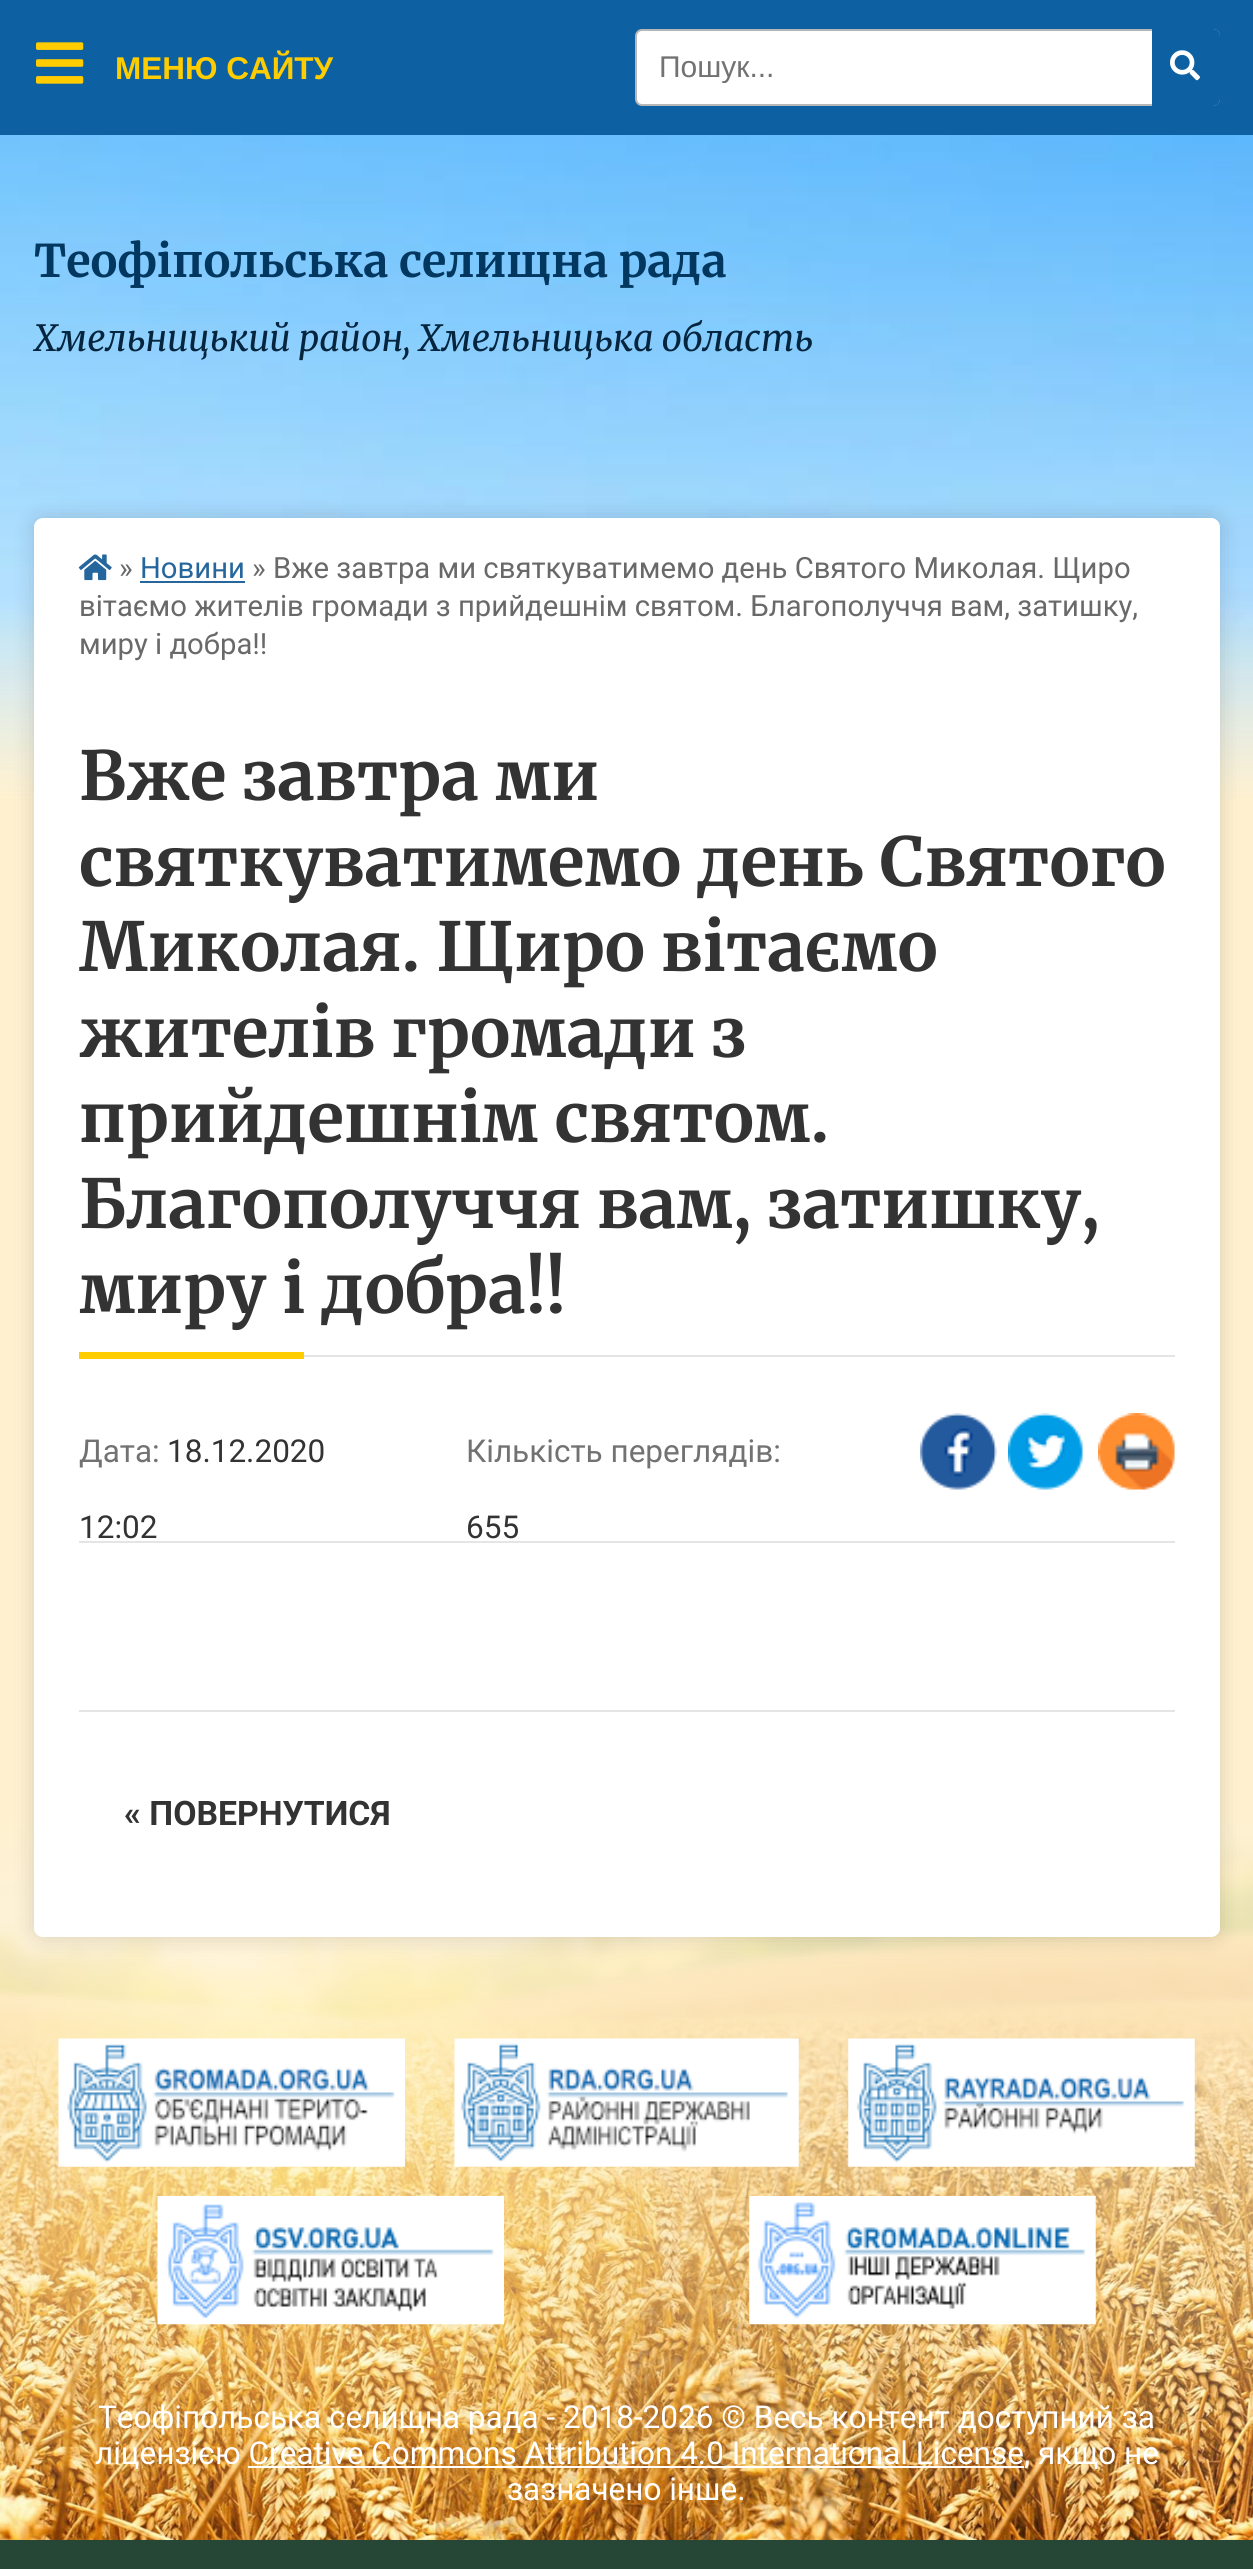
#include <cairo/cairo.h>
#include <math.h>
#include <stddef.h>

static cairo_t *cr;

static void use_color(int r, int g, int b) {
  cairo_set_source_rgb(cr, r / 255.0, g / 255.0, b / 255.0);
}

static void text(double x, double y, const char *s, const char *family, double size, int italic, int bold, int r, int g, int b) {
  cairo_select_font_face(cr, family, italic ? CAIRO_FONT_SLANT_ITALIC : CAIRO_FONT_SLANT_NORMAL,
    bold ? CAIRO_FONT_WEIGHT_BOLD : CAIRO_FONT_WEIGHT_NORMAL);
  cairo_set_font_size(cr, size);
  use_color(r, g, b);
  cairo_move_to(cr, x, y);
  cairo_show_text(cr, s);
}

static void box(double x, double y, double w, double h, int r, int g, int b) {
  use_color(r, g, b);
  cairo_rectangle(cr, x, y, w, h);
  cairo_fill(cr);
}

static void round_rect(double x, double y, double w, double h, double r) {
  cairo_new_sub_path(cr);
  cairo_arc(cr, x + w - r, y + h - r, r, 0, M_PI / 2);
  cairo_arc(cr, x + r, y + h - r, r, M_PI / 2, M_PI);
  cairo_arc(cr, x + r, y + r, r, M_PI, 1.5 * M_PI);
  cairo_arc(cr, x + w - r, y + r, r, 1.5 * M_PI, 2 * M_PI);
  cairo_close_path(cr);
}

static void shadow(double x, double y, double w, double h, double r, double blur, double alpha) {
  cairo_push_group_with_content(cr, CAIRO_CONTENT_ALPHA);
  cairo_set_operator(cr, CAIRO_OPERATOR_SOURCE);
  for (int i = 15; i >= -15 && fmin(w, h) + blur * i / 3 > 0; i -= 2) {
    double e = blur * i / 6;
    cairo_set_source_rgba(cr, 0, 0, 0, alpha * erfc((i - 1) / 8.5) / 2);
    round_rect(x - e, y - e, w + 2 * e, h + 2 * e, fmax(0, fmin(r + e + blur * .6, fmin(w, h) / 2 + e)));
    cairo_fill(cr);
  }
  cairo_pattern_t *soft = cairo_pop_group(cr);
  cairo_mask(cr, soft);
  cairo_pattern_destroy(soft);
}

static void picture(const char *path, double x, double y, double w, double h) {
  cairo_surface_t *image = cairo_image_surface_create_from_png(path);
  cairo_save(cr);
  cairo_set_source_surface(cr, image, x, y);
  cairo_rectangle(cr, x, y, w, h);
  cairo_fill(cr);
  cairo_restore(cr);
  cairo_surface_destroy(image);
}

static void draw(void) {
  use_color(255, 255, 255);
  cairo_paint(cr);
  picture("img_01.png", 0, 135, 1253, 1341);
  picture("img_08.png", 0, 1476, 1253, 1064);
  use_color(0, 0, 0);
  shadow(34, 518, 1186, 1419, 9, 11, 0.15);
  use_color(255, 255, 255);
  round_rect(34, 518, 1186, 1419, 9);
  cairo_fill(cr);
  box(0, 0, 1253, 135, 13, 97, 162);
  picture("img_02.png", 36, 42, 48, 42);
  picture("img_03.png", 78, 554, 34, 27);
  box(140, 581, 105, 2, 37, 102, 156);
  box(304, 1355, 871, 2, 229, 229, 229);
  box(79, 1352, 225, 7, 255, 204, 0);
  picture("img_04.png", 920, 1413, 77, 77);
  picture("img_05.png", 1008, 1413, 75, 77);
  picture("img_06.png", 1098, 1413, 77, 77);
  box(79, 1541, 1096, 2, 229, 229, 229);
  box(79, 1710, 1096, 2, 229, 229, 229);
  use_color(255, 255, 255);
  round_rect(636, 30, 583, 75, 6);
  cairo_fill_preserve(cr);
  use_color(183, 183, 183);
  cairo_stroke(cr);
  use_color(13, 97, 162);
  cairo_new_path(cr);
  cairo_move_to(cr, 1152, 29);
  cairo_line_to(cr, 1213, 29);
  cairo_curve_to(cr, 1217, 29, 1220, 32, 1220, 36);
  cairo_line_to(cr, 1220, 99);
  cairo_curve_to(cr, 1220, 103, 1217, 106, 1213, 106);
  cairo_line_to(cr, 1152, 106);
  cairo_close_path(cr);
  cairo_fill(cr);
  picture("img_07.png", 1170, 50, 30, 31);
  picture("img_09.png", 58, 2038, 347, 129);
  picture("img_10.png", 454, 2038, 345, 129);
  picture("img_11.png", 848, 2038, 347, 129);
  picture("img_12.png", 157, 2196, 347, 129);
  picture("img_13.png", 749, 2196, 347, 129);
  box(248, 2466, 776, 2, 255, 255, 255);
  box(0, 2540, 1253, 29, 38, 70, 54);
  text(115, 79, "МЕНЮ САЙТУ", "Liberation Sans", 31.5, 0, 1, 255, 204, 0);
  text(119, 578, "»", "Roboto", 29.25, 0, 0, 105, 105, 105);
  text(140, 578, "Новини", "Roboto", 29.25, 0, 0, 37, 102, 156);
  text(252, 578, "» Вже завтра ми святкуватимемо день Святого Миколая. Щиро", "Roboto", 29.25, 0, 0, 105, 105, 105);
  text(79, 616, "вітаємо жителів громади з прийдешнім святом. Благополуччя вам, затишку,", "Roboto", 29.25, 0, 0, 105, 105, 105);
  text(79, 654, "миру і добра!!", "Roboto", 29.25, 0, 0, 105, 105, 105);
  text(79, 800, "Вже завтра ми", "Merriweather Light", 67.5, 0, 0, 51, 51, 51);
  text(79, 886, "святкуватимемо день Святого", "Merriweather Light", 67.5, 0, 0, 51, 51, 51);
  text(79, 971, "Миколая. Щиро вітаємо", "Merriweather Light", 67.5, 0, 0, 51, 51, 51);
  text(79, 1057, "жителів громади з", "Merriweather Light", 67.5, 0, 0, 51, 51, 51);
  text(79, 1142, "прийдешнім святом.", "Merriweather Light", 67.5, 0, 0, 51, 51, 51);
  text(79, 1228, "Благополуччя вам, затишку,", "Merriweather Light", 67.5, 0, 0, 51, 51, 51);
  text(79, 1313, "миру і добра!!", "Merriweather Light", 67.5, 0, 0, 51, 51, 51);
  text(79, 1462, "Дата:", "Roboto", 31.5, 0, 0, 114, 114, 114);
  text(167, 1462, "18.12.2020", "Roboto", 31.5, 0, 0, 51, 51, 51);
  text(79, 1538, "12:02", "Roboto", 31.5, 0, 0, 51, 51, 51);
  text(466, 1462, "Кількість переглядів:", "Roboto", 31.5, 0, 0, 114, 114, 114);
  text(466, 1538, "655", "Roboto", 31.5, 0, 0, 51, 51, 51);
  text(124, 1825, "« ПОВЕРНУТИСЯ", "Roboto", 33.75, 0, 1, 51, 51, 51);
  cairo_save(cr);
  cairo_rectangle(cr, 659, 50, 468, 33);
  cairo_clip(cr);
  text(659, 77, "Пошук...", "Liberation Sans", 30, 0, 0, 114, 114, 114);
  cairo_restore(cr);
  text(34, 277, "Теофіпольська селищна рада", "Merriweather Light", 45, 0, 0, 2, 55, 95);
  text(34, 351, "Хмельницький район, Хмельницька область", "Merriweather Light", 36, 1, 0, 5, 37, 62);
  text(98, 2428, "Теофіпольська селищна рада - 2018-2026 © Весь контент доступний за", "Roboto", 31.5, 0, 0, 255, 255, 255);
  text(95, 2464, "ліцензією Creative Commons Attribution 4.0 International License, якщо не", "Roboto", 31.5, 0, 0, 255, 255, 255);
  text(507, 2500, "зазначено інше.", "Roboto", 31.5, 0, 0, 255, 255, 255);
}

int main(void) {
  cairo_surface_t *surface = cairo_image_surface_create(CAIRO_FORMAT_RGB24, 1253, 2569);
  cr = cairo_create(surface);
  cairo_font_options_t *options = cairo_font_options_create();
  cairo_font_options_set_hint_metrics(options, CAIRO_HINT_METRICS_OFF);
  cairo_font_options_set_hint_style(options, CAIRO_HINT_STYLE_NONE);
  cairo_set_font_options(cr, options);
  cairo_set_miter_limit(cr, 4);
  draw();
  cairo_surface_write_to_png(surface, "out.png");
  cairo_font_options_destroy(options);
  cairo_destroy(cr);
  cairo_surface_destroy(surface);
  return 0;
}
